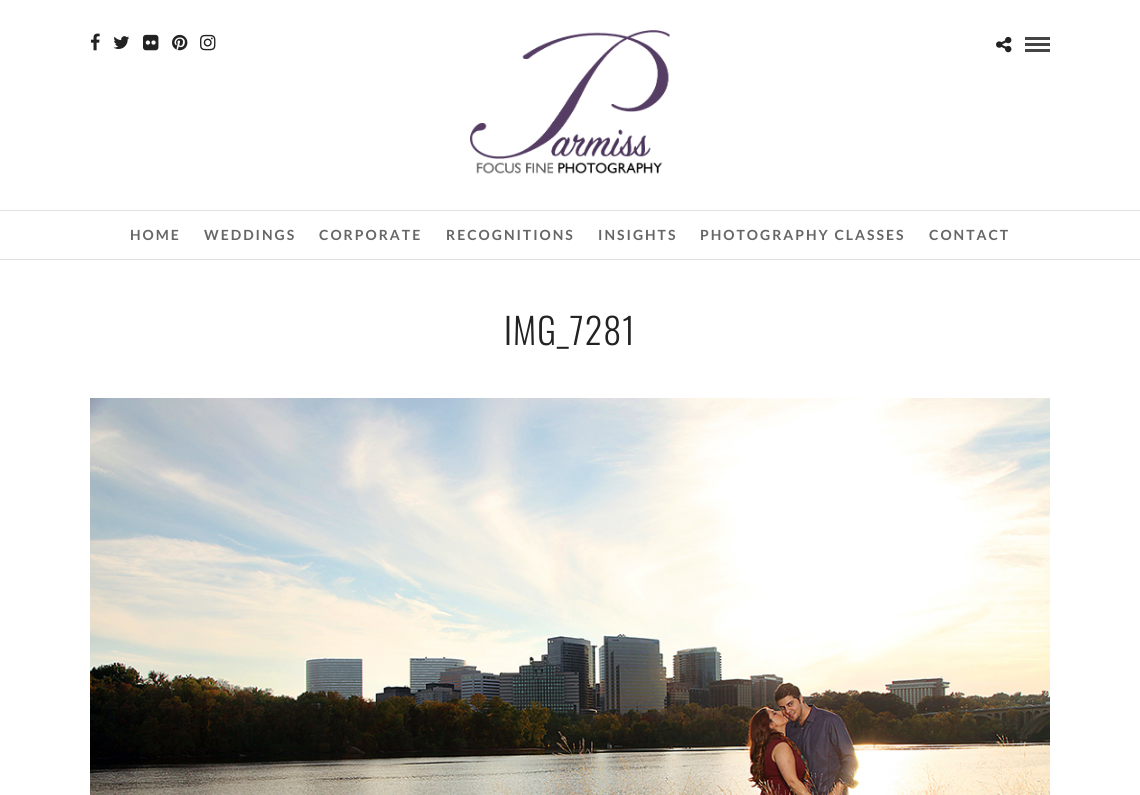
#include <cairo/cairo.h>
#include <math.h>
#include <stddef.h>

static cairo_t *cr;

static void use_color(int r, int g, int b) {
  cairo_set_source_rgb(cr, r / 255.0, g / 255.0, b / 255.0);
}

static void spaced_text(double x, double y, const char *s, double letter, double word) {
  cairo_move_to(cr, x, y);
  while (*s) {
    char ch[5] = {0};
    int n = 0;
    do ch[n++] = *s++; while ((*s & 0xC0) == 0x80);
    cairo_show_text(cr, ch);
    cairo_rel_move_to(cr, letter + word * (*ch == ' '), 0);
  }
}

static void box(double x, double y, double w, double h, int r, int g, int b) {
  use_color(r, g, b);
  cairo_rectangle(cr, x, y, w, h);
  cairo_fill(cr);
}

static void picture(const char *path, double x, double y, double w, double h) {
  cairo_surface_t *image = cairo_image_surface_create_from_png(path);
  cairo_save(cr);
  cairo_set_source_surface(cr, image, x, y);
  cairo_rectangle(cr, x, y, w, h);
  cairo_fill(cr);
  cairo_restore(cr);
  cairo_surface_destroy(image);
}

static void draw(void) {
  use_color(255, 255, 255);
  cairo_paint(cr);
  box(0, 259, 1140, 1, 225, 225, 225);
  box(0, 210, 1140, 1, 225, 225, 225);
  picture("img_01.png", 90, 33, 10, 18);
  picture("img_02.png", 113, 36, 17, 13);
  picture("img_03.png", 143, 34, 16, 17);
  picture("img_04.png", 172, 34, 16, 17);
  picture("img_05.png", 200, 34, 16, 17);
  picture("img_06.png", 470, 30, 200, 144);
  picture("img_07.png", 996, 36, 16, 17);
  box(1025, 37, 25, 3, 68, 68, 68);
  box(1025, 43, 25, 3, 68, 68, 68);
  box(1025, 49, 25, 3, 68, 68, 68);
  picture("img_08.png", 90, 398, 960, 397);
  cairo_select_font_face(cr, "Lato", CAIRO_FONT_SLANT_NORMAL, CAIRO_FONT_WEIGHT_BOLD);
  cairo_set_font_size(cr, 14);
  use_color(102, 102, 102);
  spaced_text(130, 240, "HOME", 2, 0);
  spaced_text(204, 240, "WEDDINGS", 2, 0);
  spaced_text(319, 240, "CORPORATE", 2, 0);
  spaced_text(446, 240, "RECOGNITIONS", 2, 0);
  spaced_text(598, 240, "INSIGHTS", 2, 0);
  spaced_text(700, 240, "PHOTOGRAPHY CLASSES", 2, 0);
  spaced_text(929, 240, "CONTACT", 2, 0);
  cairo_select_font_face(cr, "Oswald Light", CAIRO_FONT_SLANT_NORMAL, CAIRO_FONT_WEIGHT_NORMAL);
  cairo_set_font_size(cr, 36);
  use_color(34, 34, 34);
  spaced_text(504, 345, "IMG_7281", 1, 0);
}

int main(void) {
  cairo_surface_t *surface = cairo_image_surface_create(CAIRO_FORMAT_RGB24, 1140, 795);
  cr = cairo_create(surface);
  cairo_font_options_t *options = cairo_font_options_create();
  cairo_font_options_set_hint_metrics(options, CAIRO_HINT_METRICS_OFF);
  cairo_font_options_set_hint_style(options, CAIRO_HINT_STYLE_NONE);
  cairo_set_font_options(cr, options);
  cairo_set_miter_limit(cr, 4);
  draw();
  cairo_surface_write_to_png(surface, "out.png");
  cairo_font_options_destroy(options);
  cairo_destroy(cr);
  cairo_surface_destroy(surface);
  return 0;
}
